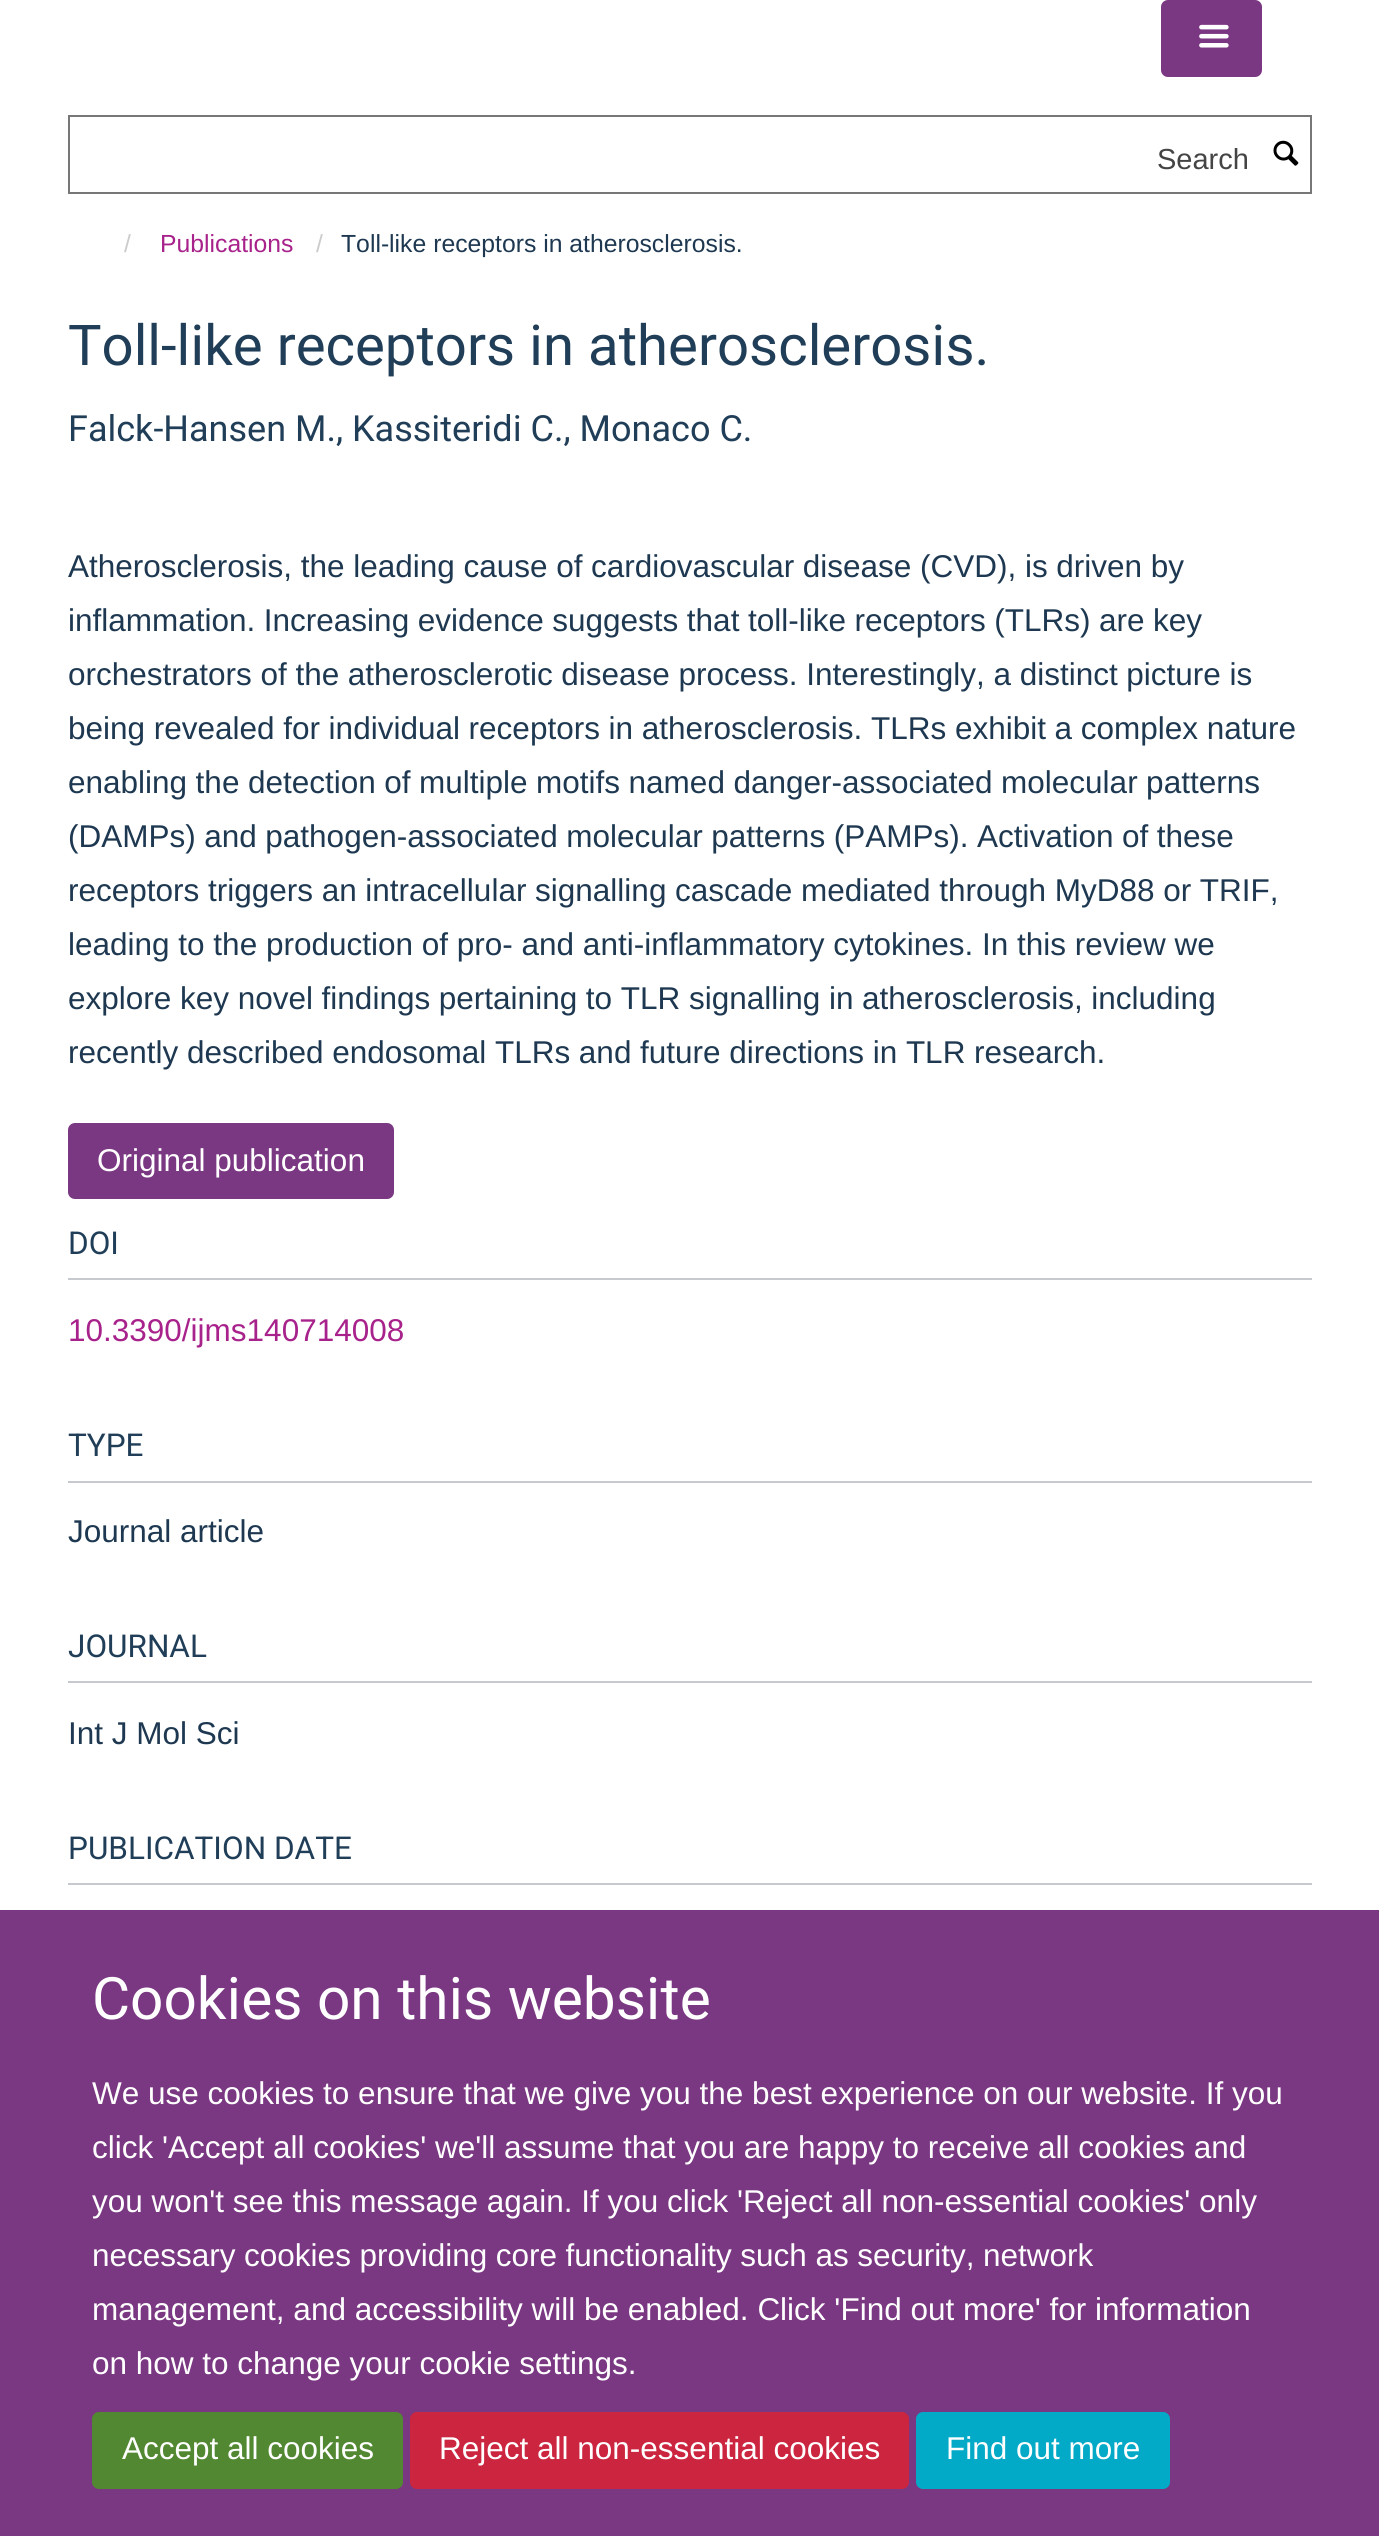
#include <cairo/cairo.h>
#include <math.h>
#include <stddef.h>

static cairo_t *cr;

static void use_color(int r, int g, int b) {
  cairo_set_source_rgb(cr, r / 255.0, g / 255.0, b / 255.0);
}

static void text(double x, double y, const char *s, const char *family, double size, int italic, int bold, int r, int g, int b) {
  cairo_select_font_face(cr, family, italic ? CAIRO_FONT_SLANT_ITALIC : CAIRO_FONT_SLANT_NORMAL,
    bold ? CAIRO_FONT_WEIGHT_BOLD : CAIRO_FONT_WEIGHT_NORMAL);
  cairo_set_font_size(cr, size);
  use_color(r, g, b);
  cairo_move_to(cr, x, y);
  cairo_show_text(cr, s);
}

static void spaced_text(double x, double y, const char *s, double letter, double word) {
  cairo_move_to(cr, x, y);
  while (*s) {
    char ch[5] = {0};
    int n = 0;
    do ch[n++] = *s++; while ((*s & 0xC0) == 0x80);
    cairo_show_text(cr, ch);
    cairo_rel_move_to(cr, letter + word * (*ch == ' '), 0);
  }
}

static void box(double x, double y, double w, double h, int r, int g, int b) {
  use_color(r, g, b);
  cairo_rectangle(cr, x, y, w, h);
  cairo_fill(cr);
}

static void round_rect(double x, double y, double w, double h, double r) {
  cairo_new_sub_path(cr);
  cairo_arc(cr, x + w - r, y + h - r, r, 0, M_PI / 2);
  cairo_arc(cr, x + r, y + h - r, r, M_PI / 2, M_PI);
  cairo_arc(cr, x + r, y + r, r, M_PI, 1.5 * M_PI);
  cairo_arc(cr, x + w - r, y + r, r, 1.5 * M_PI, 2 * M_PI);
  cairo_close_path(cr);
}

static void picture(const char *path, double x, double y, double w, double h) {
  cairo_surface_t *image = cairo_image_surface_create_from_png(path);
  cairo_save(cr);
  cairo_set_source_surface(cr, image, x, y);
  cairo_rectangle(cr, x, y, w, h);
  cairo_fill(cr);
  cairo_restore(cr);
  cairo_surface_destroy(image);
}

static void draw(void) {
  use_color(255, 255, 255);
  cairo_paint(cr);
  use_color(122, 55, 130);
  round_rect(1162, 1, 99, 75, 6);
  cairo_fill_preserve(cr);
  cairo_stroke(cr);
  picture("img_01.png", 1199, 24, 30, 24);
  cairo_rectangle(cr, 69, 116, 1242, 77);
  use_color(119, 119, 119);
  cairo_stroke(cr);
  picture("img_02.png", 1273, 140, 26, 26);
  use_color(122, 55, 130);
  round_rect(69, 1124, 324, 74, 6);
  cairo_fill_preserve(cr);
  cairo_stroke(cr);
  box(68, 1278, 1244, 2, 198, 202, 207);
  box(68, 1481, 1244, 2, 198, 202, 207);
  box(68, 1681, 1244, 2, 198, 202, 207);
  box(68, 1883, 1244, 2, 198, 202, 207);
  box(0, 1910, 1379, 626, 122, 55, 130);
  use_color(81, 136, 49);
  round_rect(93, 2413, 309, 75, 6);
  cairo_fill_preserve(cr);
  cairo_stroke(cr);
  use_color(204, 37, 63);
  round_rect(411, 2413, 497, 75, 6);
  cairo_fill_preserve(cr);
  cairo_stroke(cr);
  use_color(2, 170, 199);
  round_rect(917, 2413, 252, 75, 6);
  cairo_fill_preserve(cr);
  cairo_stroke(cr);
  text(1157, 169, "Search", "Liberation Sans", 29, 0, 0, 68, 68, 68);
  text(124, 252, "/", "Liberation Sans", 24.75, 0, 0, 204, 204, 204);
  text(160, 252, "Publications", "Liberation Sans", 24.75, 0, 0, 168, 34, 139);
  text(316, 252, "/", "Liberation Sans", 24.75, 0, 0, 204, 204, 204);
  text(341, 252, "Toll-like receptors in atherosclerosis.", "Liberation Sans", 24.75, 0, 0, 29, 56, 80);
  text(68, 365, "Toll-like receptors in atherosclerosis.", "Heebo", 56.25, 0, 0, 32, 62, 88);
  text(68, 441, "Falck-Hansen M., Kassiteridi C., Monaco C.", "Heebo", 36, 0, 0, 32, 62, 88);
  cairo_select_font_face(cr, "Liberation Sans", CAIRO_FONT_SLANT_NORMAL, CAIRO_FONT_WEIGHT_NORMAL);
  cairo_set_font_size(cr, 31.5);
  use_color(29, 56, 80);
  spaced_text(68, 577, "Atherosclerosis, the leading cause of cardiovascular disease (CVD), is driven by", 0, -0.1);
  spaced_text(68, 631, "inflammation. Increasing evidence suggests that toll-like receptors (TLRs) are key", 0, -0.25);
  spaced_text(68, 685, "orchestrators of the atherosclerotic disease process. Interestingly, a distinct picture is", 0, -0.1);
  spaced_text(68, 739, "being revealed for individual receptors in atherosclerosis. TLRs exhibit a complex nature", 0, -0.1);
  spaced_text(68, 793, "enabling the detection of multiple motifs named danger-associated molecular patterns", 0, -0.25);
  spaced_text(68, 847, "(DAMPs) and pathogen-associated molecular patterns (PAMPs). Activation of these", 0, -0.25);
  spaced_text(68, 901, "receptors triggers an intracellular signalling cascade mediated through MyD88 or TRIF,", 0, -0.1);
  text(68, 955, "leading to the production of pro- and anti-inflammatory cytokines. In this review we", "Liberation Sans", 31.5, 0, 0, 29, 56, 80);
  spaced_text(68, 1009, "explore key novel findings pertaining to TLR signalling in atherosclerosis, including", 0, -0.1);
  spaced_text(68, 1063, "recently described endosomal TLRs and future directions in TLR research.", 0, -0.1);
  text(97, 1171, "Original publication", "Liberation Sans", 31.5, 0, 0, 255, 255, 255);
  text(68, 1254, "DOI", "Heebo", 31.5, 0, 0, 32, 62, 88);
  text(68, 1341, "10.3390/ijms140714008", "Liberation Sans", 31.5, 0, 0, 168, 34, 139);
  text(68, 1456, "TYPE", "Heebo", 31.5, 0, 0, 32, 62, 88);
  text(68, 1542, "Journal article", "Liberation Sans", 31.5, 0, 0, 29, 56, 80);
  text(68, 1657, "JOURNAL", "Heebo", 31.5, 0, 0, 32, 62, 88);
  text(68, 1744, "Int J Mol Sci", "Liberation Sans", 31.5, 0, 0, 29, 56, 80);
  text(68, 1859, "PUBLICATION DATE", "Heebo", 31.5, 0, 0, 32, 62, 88);
  text(92, 2019, "Cookies on this website", "Heebo", 58.5, 0, 0, 255, 255, 255);
  text(92, 2104, "We use cookies to ensure that we give you the best experience on our website. If you", "Liberation Sans", 31.5, 0, 0, 255, 255, 255);
  text(92, 2158, "click 'Accept all cookies' we'll assume that you are happy to receive all cookies and", "Liberation Sans", 31.5, 0, 0, 255, 255, 255);
  text(92, 2212, "you won't see this message again. If you click 'Reject all non-essential cookies' only", "Liberation Sans", 31.5, 0, 0, 255, 255, 255);
  spaced_text(92, 2266, "necessary cookies providing core functionality such as security, network", 0, -0.25);
  text(92, 2320, "management, and accessibility will be enabled. Click 'Find out more' for information", "Liberation Sans", 31.5, 0, 0, 255, 255, 255);
  text(92, 2374, "on how to change your cookie settings.", "Liberation Sans", 31.5, 0, 0, 255, 255, 255);
  text(122, 2459, "Accept all cookies", "Liberation Sans", 31.5, 0, 0, 255, 255, 255);
  text(439, 2459, "Reject all non-essential cookies", "Liberation Sans", 31.5, 0, 0, 255, 255, 255);
  text(946, 2459, "Find out more", "Liberation Sans", 31.5, 0, 0, 255, 255, 255);
}

int main(void) {
  cairo_surface_t *surface = cairo_image_surface_create(CAIRO_FORMAT_RGB24, 1379, 2536);
  cr = cairo_create(surface);
  cairo_font_options_t *options = cairo_font_options_create();
  cairo_font_options_set_hint_metrics(options, CAIRO_HINT_METRICS_OFF);
  cairo_font_options_set_hint_style(options, CAIRO_HINT_STYLE_NONE);
  cairo_set_font_options(cr, options);
  cairo_set_miter_limit(cr, 4);
  draw();
  cairo_surface_write_to_png(surface, "out.png");
  cairo_font_options_destroy(options);
  cairo_destroy(cr);
  cairo_surface_destroy(surface);
  return 0;
}
